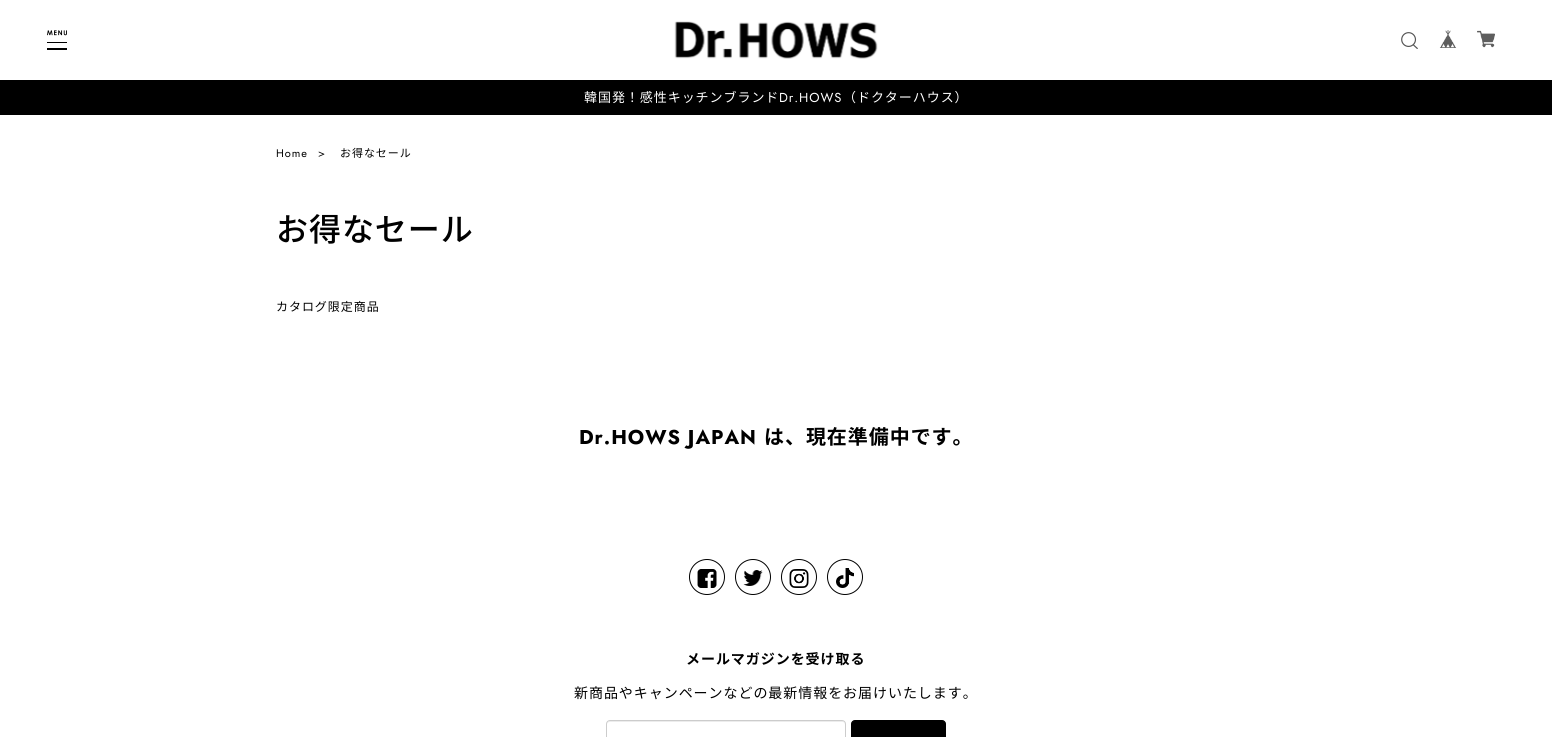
#include <cairo/cairo.h>
#include <math.h>
#include <stddef.h>

static cairo_t *cr;

static void use_color(int r, int g, int b) {
  cairo_set_source_rgb(cr, r / 255.0, g / 255.0, b / 255.0);
}

static void spaced_text(double x, double y, const char *s, double letter, double word) {
  cairo_move_to(cr, x, y);
  while (*s) {
    char ch[5] = {0};
    int n = 0;
    do ch[n++] = *s++; while ((*s & 0xC0) == 0x80);
    cairo_show_text(cr, ch);
    cairo_rel_move_to(cr, letter + word * (*ch == ' '), 0);
  }
}

static void box(double x, double y, double w, double h, int r, int g, int b) {
  use_color(r, g, b);
  cairo_rectangle(cr, x, y, w, h);
  cairo_fill(cr);
}

static void round_rect(double x, double y, double w, double h, double r) {
  cairo_new_sub_path(cr);
  cairo_arc(cr, x + w - r, y + h - r, r, 0, M_PI / 2);
  cairo_arc(cr, x + r, y + h - r, r, M_PI / 2, M_PI);
  cairo_arc(cr, x + r, y + r, r, M_PI, 1.5 * M_PI);
  cairo_arc(cr, x + w - r, y + r, r, 1.5 * M_PI, 2 * M_PI);
  cairo_close_path(cr);
}

static void picture(const char *path, double x, double y, double w, double h) {
  cairo_surface_t *image = cairo_image_surface_create_from_png(path);
  cairo_save(cr);
  cairo_set_source_surface(cr, image, x, y);
  cairo_rectangle(cr, x, y, w, h);
  cairo_fill(cr);
  cairo_restore(cr);
  cairo_surface_destroy(image);
}

static void draw(void) {
  use_color(255, 255, 255);
  cairo_paint(cr);
  picture("img_01.png", 47, 30, 20, 20);
  picture("img_02.png", 674, 21, 204, 38);
  picture("img_03.png", 1401, 32, 17, 17);
  picture("img_04.png", 1439, 30, 18, 18);
  picture("img_05.png", 1477, 30, 18, 18);
  box(0, 80, 1552, 35, 0, 0, 0);
  cairo_arc(cr, 707, 577, 17.5, 0, 2 * M_PI);
  cairo_set_line_width(cr, 1);
  cairo_stroke(cr);
  picture("img_06.png", 697, 569, 20, 19);
  cairo_arc(cr, 753, 577, 17.5, 0, 2 * M_PI);
  cairo_stroke(cr);
  picture("img_07.png", 743, 570, 20, 16);
  cairo_arc(cr, 799, 577, 17.5, 0, 2 * M_PI);
  cairo_stroke(cr);
  picture("img_08.png", 789, 569, 20, 19);
  cairo_arc(cr, 845, 577, 17.5, 0, 2 * M_PI);
  cairo_stroke(cr);
  picture("img_09.png", 836, 568, 18, 20);
  use_color(236, 236, 236);
  cairo_new_path(cr);
  cairo_move_to(cr, 610, 722);
  cairo_line_to(cr, 843, 722);
  cairo_line_to(cr, 845, 723);
  cairo_line_to(cr, 845, 725);
  cairo_curve_to(cr, 845, 723, 844, 721, 842, 721);
  cairo_line_to(cr, 610, 721);
  cairo_curve_to(cr, 608, 721, 607, 723, 607, 725);
  cairo_curve_to(cr, 607, 723, 608, 722, 610, 722);
  cairo_close_path(cr);
  cairo_fill(cr);
  round_rect(606.5, 720.5, 239, 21, 3.5);
  use_color(204, 204, 204);
  cairo_stroke(cr);
  use_color(0, 0, 0);
  round_rect(851.5, 720.5, 94, 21, 3.5);
  cairo_fill_preserve(cr);
  cairo_stroke(cr);
  cairo_select_font_face(cr, "Noto Sans JP", CAIRO_FONT_SLANT_NORMAL, CAIRO_FONT_WEIGHT_NORMAL);
  cairo_set_font_size(cr, 13);
  use_color(255, 255, 255);
  spaced_text(584, 102, "韓国発！感性キッチンブランド", 0.95, 0);
  cairo_select_font_face(cr, "Jost", CAIRO_FONT_SLANT_NORMAL, CAIRO_FONT_WEIGHT_NORMAL);
  spaced_text(779, 102, "Dr.HOWS", 0.95, 0);
  cairo_select_font_face(cr, "Noto Sans JP", CAIRO_FONT_SLANT_NORMAL, CAIRO_FONT_WEIGHT_NORMAL);
  spaced_text(843, 102, "（ドクターハウス）", 0.95, 0);
  cairo_select_font_face(cr, "Jost", CAIRO_FONT_SLANT_NORMAL, CAIRO_FONT_WEIGHT_NORMAL);
  cairo_set_font_size(cr, 11);
  use_color(0, 0, 0);
  spaced_text(276, 157, "Home", 0.95, 0);
  spaced_text(318, 157, ">", 0.95, 0);
  cairo_select_font_face(cr, "Noto Sans JP", CAIRO_FONT_SLANT_NORMAL, CAIRO_FONT_WEIGHT_NORMAL);
  spaced_text(340, 157, "お得なセール", 0.95, 0);
  cairo_select_font_face(cr, "Noto Sans JP Medium", CAIRO_FONT_SLANT_NORMAL, CAIRO_FONT_WEIGHT_NORMAL);
  cairo_set_font_size(cr, 32);
  spaced_text(276, 241, "お得なセール", 0.95, 0);
  cairo_select_font_face(cr, "Noto Sans JP", CAIRO_FONT_SLANT_NORMAL, CAIRO_FONT_WEIGHT_NORMAL);
  cairo_set_font_size(cr, 12);
  spaced_text(276, 311, "カタログ限定商品", 0.95, 0);
  cairo_select_font_face(cr, "Jost", CAIRO_FONT_SLANT_NORMAL, CAIRO_FONT_WEIGHT_BOLD);
  cairo_set_font_size(cr, 20);
  spaced_text(579, 444, "Dr.HOWS JAPAN", 0.95, 0);
  cairo_select_font_face(cr, "Noto Sans JP", CAIRO_FONT_SLANT_NORMAL, CAIRO_FONT_WEIGHT_BOLD);
  spaced_text(764, 444, "は、現在準備中です。", 0.95, 0);
  cairo_set_font_size(cr, 14);
  spaced_text(686, 664, "メールマガジンを受け取る", 0.95, 0);
  cairo_select_font_face(cr, "Noto Sans JP", CAIRO_FONT_SLANT_NORMAL, CAIRO_FONT_WEIGHT_NORMAL);
  spaced_text(574, 698, "新商品やキャンペーンなどの最新情報をお届けいたします。", 0.95, 0);
}

int main(void) {
  cairo_surface_t *surface = cairo_image_surface_create(CAIRO_FORMAT_RGB24, 1552, 737);
  cr = cairo_create(surface);
  cairo_font_options_t *options = cairo_font_options_create();
  cairo_font_options_set_hint_metrics(options, CAIRO_HINT_METRICS_OFF);
  cairo_font_options_set_hint_style(options, CAIRO_HINT_STYLE_NONE);
  cairo_set_font_options(cr, options);
  cairo_set_miter_limit(cr, 4);
  draw();
  cairo_surface_write_to_png(surface, "out.png");
  cairo_font_options_destroy(options);
  cairo_destroy(cr);
  cairo_surface_destroy(surface);
  return 0;
}
